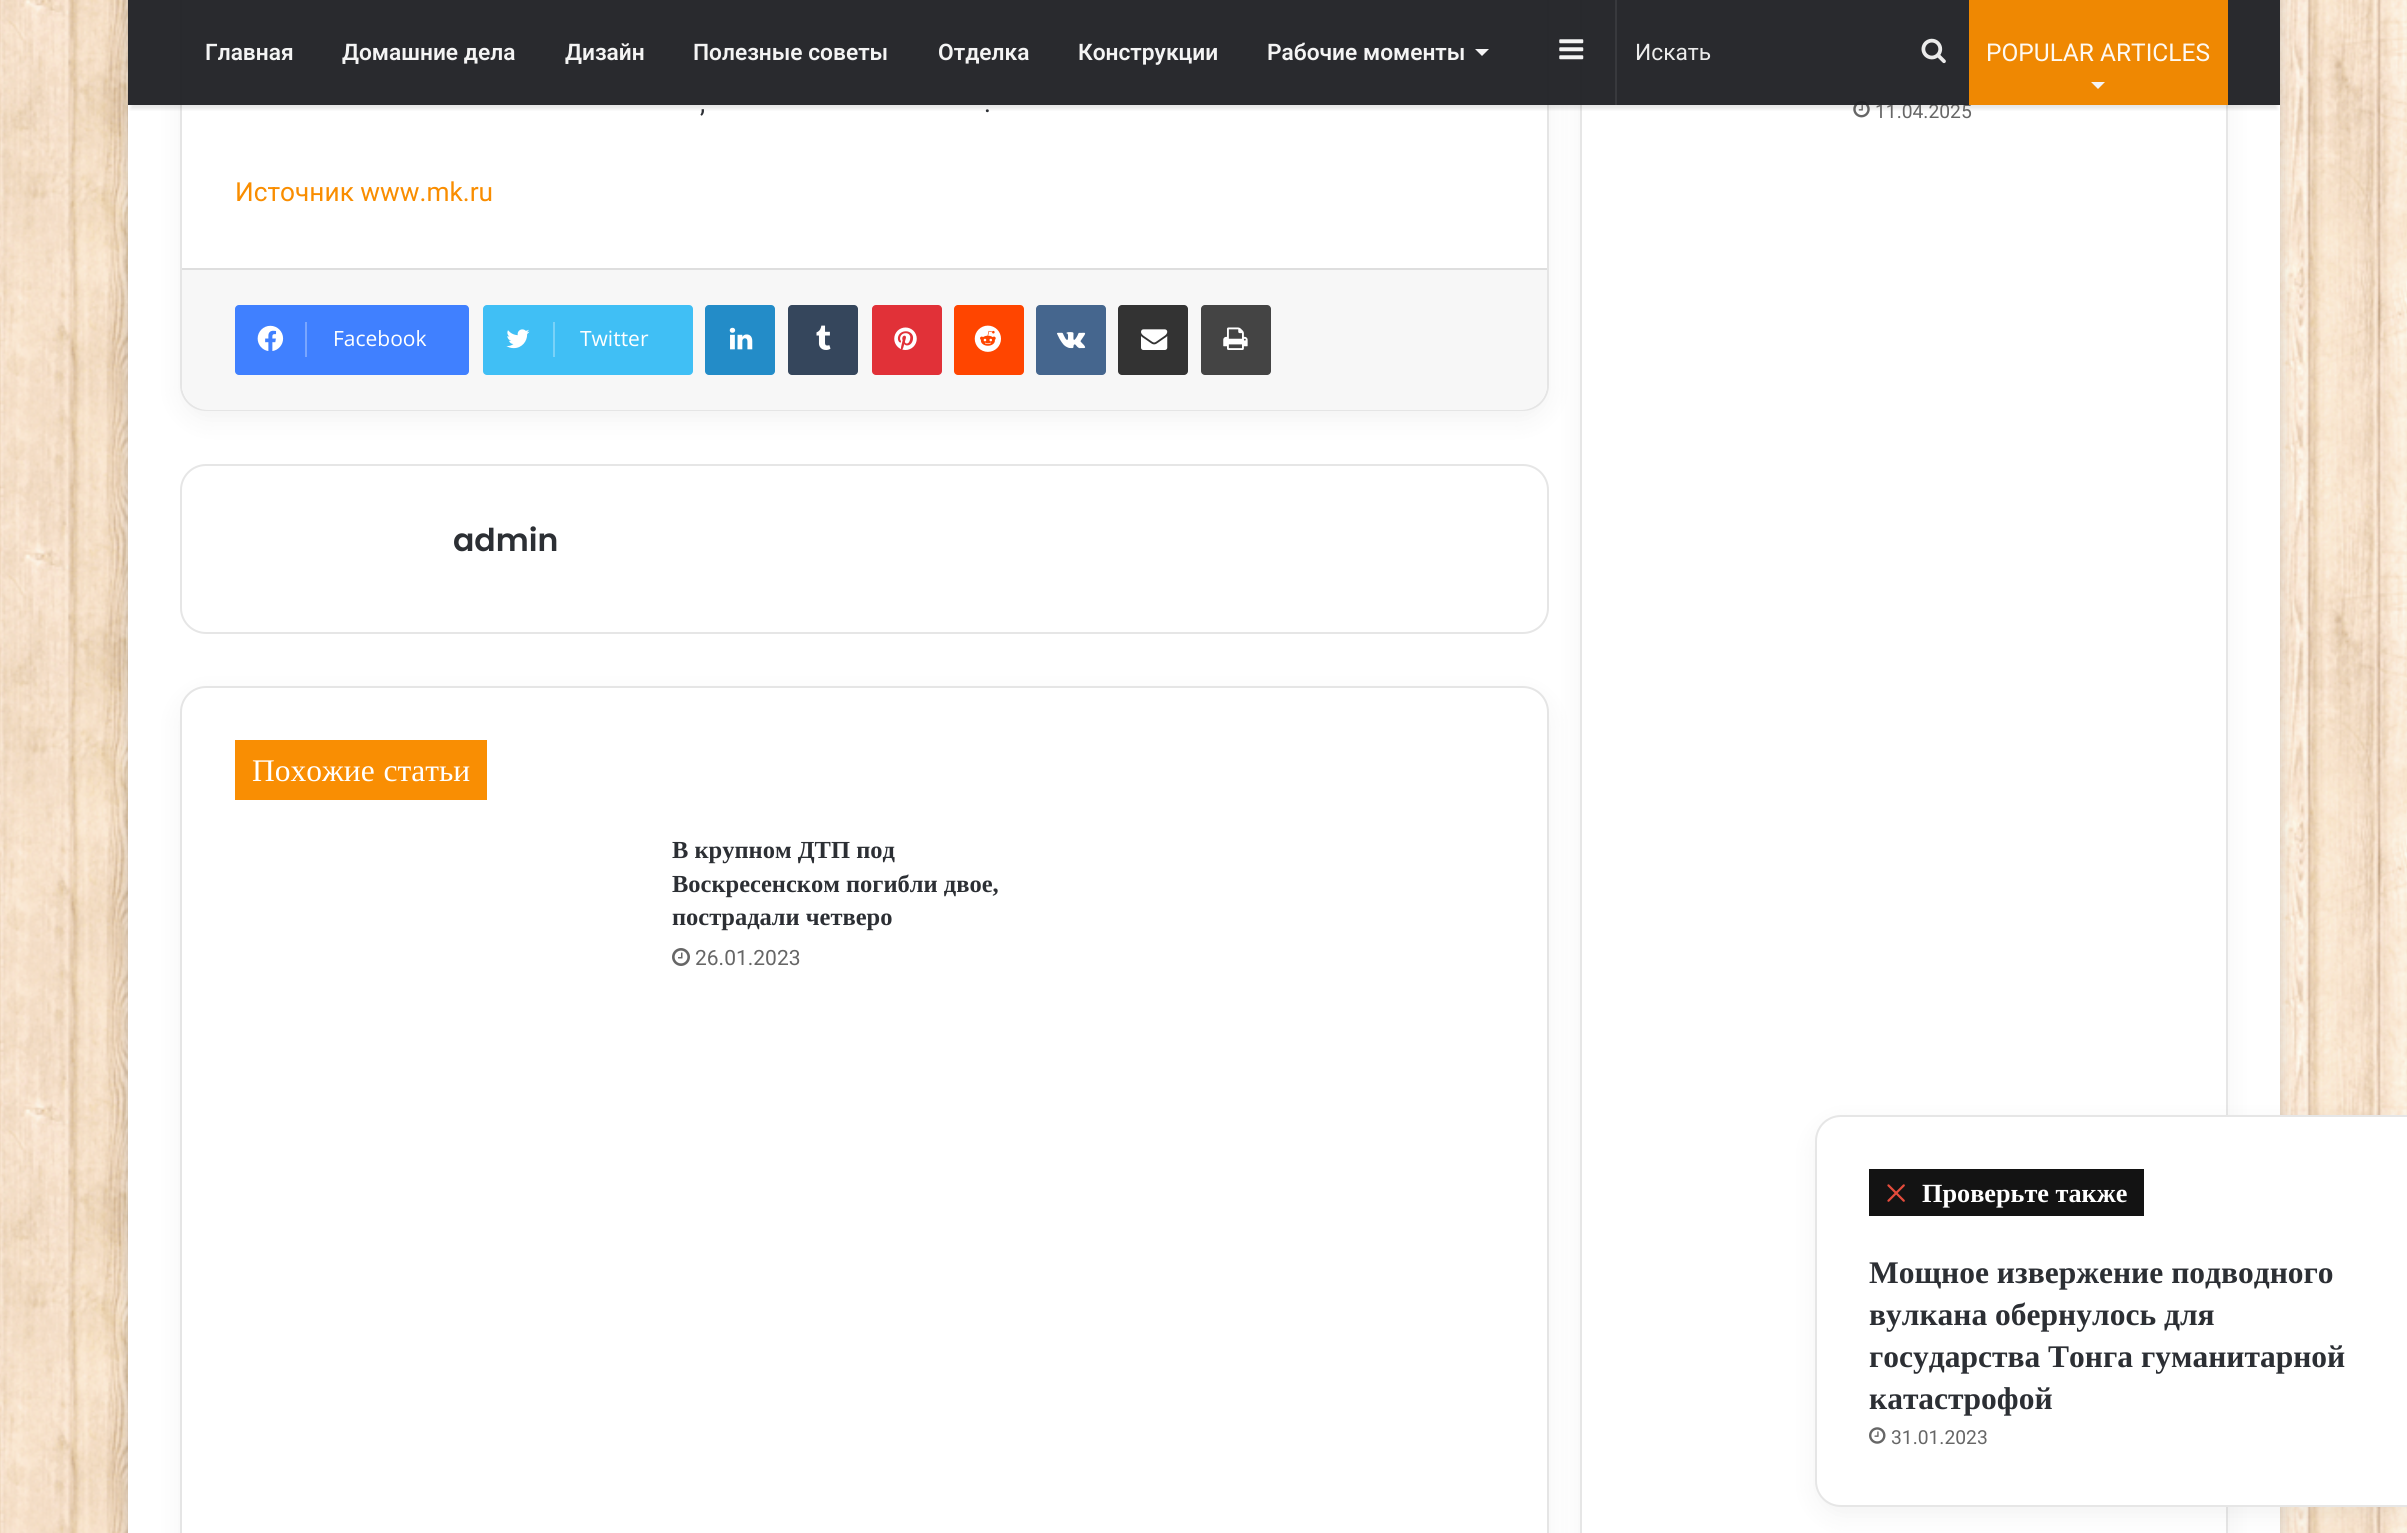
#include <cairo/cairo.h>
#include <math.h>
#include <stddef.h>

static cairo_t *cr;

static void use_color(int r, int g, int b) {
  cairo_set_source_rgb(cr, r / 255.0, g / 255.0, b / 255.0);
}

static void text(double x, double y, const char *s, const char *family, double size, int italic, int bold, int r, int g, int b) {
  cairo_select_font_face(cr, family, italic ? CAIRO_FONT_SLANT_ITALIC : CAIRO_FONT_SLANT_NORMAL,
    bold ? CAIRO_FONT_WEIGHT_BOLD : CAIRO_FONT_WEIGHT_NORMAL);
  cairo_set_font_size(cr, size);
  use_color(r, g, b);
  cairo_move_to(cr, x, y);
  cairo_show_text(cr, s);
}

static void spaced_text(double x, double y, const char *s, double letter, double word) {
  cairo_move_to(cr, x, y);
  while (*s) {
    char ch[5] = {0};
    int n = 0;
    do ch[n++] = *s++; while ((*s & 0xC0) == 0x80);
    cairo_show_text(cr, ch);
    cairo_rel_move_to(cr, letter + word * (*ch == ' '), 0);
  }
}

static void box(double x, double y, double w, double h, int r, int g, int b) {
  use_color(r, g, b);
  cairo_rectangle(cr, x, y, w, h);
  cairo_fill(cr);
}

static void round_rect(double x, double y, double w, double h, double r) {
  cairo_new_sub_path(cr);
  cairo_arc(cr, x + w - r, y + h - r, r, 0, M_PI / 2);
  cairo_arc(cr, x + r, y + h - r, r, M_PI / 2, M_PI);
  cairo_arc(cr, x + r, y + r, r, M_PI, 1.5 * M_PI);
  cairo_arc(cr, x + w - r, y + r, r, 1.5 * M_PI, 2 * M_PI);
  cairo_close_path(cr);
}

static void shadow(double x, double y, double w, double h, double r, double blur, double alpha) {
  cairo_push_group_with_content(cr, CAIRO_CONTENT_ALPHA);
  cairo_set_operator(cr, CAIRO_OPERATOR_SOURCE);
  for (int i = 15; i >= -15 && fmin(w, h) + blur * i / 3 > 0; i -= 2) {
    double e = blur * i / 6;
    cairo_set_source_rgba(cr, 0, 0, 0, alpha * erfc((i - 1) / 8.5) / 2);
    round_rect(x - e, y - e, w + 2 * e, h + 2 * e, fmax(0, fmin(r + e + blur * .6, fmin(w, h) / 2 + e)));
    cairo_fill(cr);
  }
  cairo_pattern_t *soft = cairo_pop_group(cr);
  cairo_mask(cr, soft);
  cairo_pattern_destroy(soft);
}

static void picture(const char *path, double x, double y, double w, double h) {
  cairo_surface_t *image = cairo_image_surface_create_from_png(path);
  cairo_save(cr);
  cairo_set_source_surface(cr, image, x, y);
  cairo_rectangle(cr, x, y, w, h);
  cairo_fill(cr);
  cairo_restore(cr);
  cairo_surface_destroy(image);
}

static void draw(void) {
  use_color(255, 255, 255);
  cairo_paint(cr);
  picture("img_01.png", 0, 0, 2407, 1533);
  use_color(171, 171, 171);
  shadow(128, -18, 2152, 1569, 0, 6, 0.5);
  box(128, 0, 2152, 1533, 255, 255, 255);
  use_color(0, 0, 0);
  shadow(180, -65, 1369, 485, 26, 13, 0.05);
  use_color(255, 255, 255);
  round_rect(181, -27, 1367, 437, 25);
  cairo_fill_preserve(cr);
  use_color(229, 229, 229);
  cairo_stroke(cr);
  use_color(0, 0, 0);
  shadow(180, 695, 1369, 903, 26, 13, 0.05);
  use_color(247, 247, 247);
  cairo_new_path(cr);
  cairo_move_to(cr, 182, 268);
  cairo_line_to(cr, 1547, 268);
  cairo_line_to(cr, 1547, 384);
  cairo_curve_to(cr, 1547, 398.5, 1535.5, 410, 1521, 410);
  cairo_line_to(cr, 208, 410);
  cairo_curve_to(cr, 193.5, 410, 182, 398.5, 182, 384);
  cairo_close_path(cr);
  cairo_fill(cr);
  box(182, 268, 1365, 2, 222, 222, 222);
  round_rect(181, 465, 1367, 168, 25);
  use_color(230, 230, 230);
  cairo_stroke(cr);
  use_color(255, 255, 255);
  round_rect(181, 687, 1367, 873, 25);
  cairo_fill_preserve(cr);
  use_color(229, 229, 229);
  cairo_stroke(cr);
  use_color(0, 0, 0);
  shadow(1580, -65, 648, 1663, 26, 13, 0.05);
  use_color(255, 255, 255);
  cairo_rectangle(cr, 1581, -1, 646, 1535);
  cairo_fill_preserve(cr);
  use_color(230, 230, 230);
  cairo_stroke(cr);
  picture("img_14.png", 1853, 100, 17, 18);
  cairo_save(cr);
  cairo_rectangle(cr, 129, 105, 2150, 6);
  cairo_clip(cr);
  use_color(0, 0, 0);
  shadow(131, 11, 2146, 98, 0, 2, 0.1);
  cairo_restore(cr);
  use_color(64, 128, 255);
  round_rect(235, 305, 234, 70, 4);
  cairo_fill(cr);
  picture("img_04.png", 257, 325, 27, 26);
  box(305, 322, 2, 35, 121, 166, 255);
  use_color(64, 191, 245);
  round_rect(483, 305, 210, 70, 4);
  cairo_fill(cr);
  picture("img_05.png", 506, 329, 24, 20);
  box(553, 322, 2, 35, 121, 210, 248);
  use_color(35, 140, 200);
  round_rect(705, 305, 70, 70, 4);
  cairo_fill(cr);
  picture("img_06.png", 729, 327, 24, 23);
  use_color(53, 70, 92);
  round_rect(788, 305, 70, 70, 4);
  cairo_fill(cr);
  picture("img_07.png", 816, 325, 15, 25);
  use_color(225, 49, 56);
  round_rect(872, 305, 70, 70, 4);
  cairo_fill(cr);
  picture("img_08.png", 894, 327, 23, 23);
  use_color(255, 69, 0);
  round_rect(954, 305, 70, 70, 4);
  cairo_fill(cr);
  picture("img_09.png", 974, 325, 27, 27);
  use_color(69, 102, 142);
  round_rect(1036, 305, 70, 70, 4);
  cairo_fill(cr);
  picture("img_10.png", 1057, 332, 29, 17);
  use_color(51, 51, 51);
  round_rect(1118, 305, 70, 70, 4);
  cairo_fill(cr);
  picture("img_11.png", 1141, 329, 27, 21);
  use_color(68, 68, 68);
  round_rect(1201, 305, 70, 70, 4);
  cairo_fill(cr);
  picture("img_12.png", 1223, 327, 25, 23);
  box(235, 740, 252, 60, 249, 142, 3);
  picture("img_13.png", 672, 948, 18, 18);
  use_color(0, 0, 0);
  shadow(1815, 1124, 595, 392, 26, 13, 0.05);
  use_color(255, 255, 255);
  cairo_new_path(cr);
  cairo_move_to(cr, 1841, 1115);
  cairo_line_to(cr, 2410, 1115);
  cairo_line_to(cr, 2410, 1507);
  cairo_line_to(cr, 1841, 1507);
  cairo_curve_to(cr, 1826.5, 1507, 1815, 1495.5, 1815, 1481);
  cairo_line_to(cr, 1815, 1141);
  cairo_curve_to(cr, 1815, 1126.5, 1826.5, 1115, 1841, 1115);
  cairo_close_path(cr);
  cairo_fill(cr);
  cairo_new_path(cr);
  cairo_move_to(cr, 1841, 1116);
  cairo_line_to(cr, 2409, 1116);
  cairo_line_to(cr, 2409, 1506);
  cairo_line_to(cr, 1841, 1506);
  cairo_curve_to(cr, 1827, 1506, 1816, 1495, 1816, 1481);
  cairo_line_to(cr, 1816, 1141);
  cairo_curve_to(cr, 1816, 1127, 1827, 1116, 1841, 1116);
  cairo_close_path(cr);
  cairo_set_source_rgba(cr, 0, 0, 0, 0.1);
  cairo_stroke(cr);
  box(1869, 1169, 275, 47, 19, 19, 19);
  picture("img_15.png", 1887, 1184, 18, 18);
  picture("img_16.png", 1869, 1427, 17, 17);
  text(700, 112, ",", "Roboto", 26.25, 0, 0, 44, 47, 52);
  text(984, 112, ".", "Roboto", 26.25, 0, 0, 44, 47, 52);
  text(235, 201, "Источник www.mk.ru", "Roboto", 26.25, 0, 0, 249, 141, 0);
  text(333, 346, "Facebook", "Open Sans", 21, 0, 0, 255, 255, 255);
  text(580, 346, "Twitter", "Open Sans", 21, 0, 0, 255, 255, 255);
  text(453, 551, "admin", "Poppins SemiBold", 31.5, 0, 0, 44, 47, 52);
  cairo_select_font_face(cr, "Liberation Serif", CAIRO_FONT_SLANT_NORMAL, CAIRO_FONT_WEIGHT_NORMAL);
  use_color(255, 255, 255);
  spaced_text(252, 781, "Похожие статьи", 0, 1);
  text(672, 858, "В крупном ДТП под", "Liberation Serif", 24.5, 0, 1, 44, 47, 52);
  text(672, 892, "Воскресенском погибли двое,", "Liberation Serif", 24.5, 0, 1, 44, 47, 52);
  text(672, 925, "пострадали четверо", "Liberation Serif", 24.5, 0, 1, 44, 47, 52);
  text(695, 965, "26.01.2023", "Roboto", 21, 0, 0, 102, 102, 102);
  text(1875, 118, "11.04.2025", "Roboto", 19.25, 0, 0, 102, 102, 102);
  cairo_set_source_rgba(cr, 0.122, 0.125, 0.141, 0.95);
  cairo_rectangle(cr, 128, 0, 2152, 105);
  cairo_fill(cr);
  picture("img_02.png", 1559, 39, 25, 21);
  picture("img_03.png", 1921, 38, 25, 26);
  text(1635, 60, "Искать", "Roboto", 22.75, 0, 0, 236, 236, 236);
  box(1615, 0, 2, 105, 56, 57, 61);
  cairo_set_source_rgba(cr, 0.976, 0.553, 0, 0.95);
  cairo_rectangle(cr, 1969, 0, 259, 105);
  cairo_fill(cr);
  use_color(244, 244, 245);
  cairo_new_path(cr);
  cairo_move_to(cr, 2091, 82);
  cairo_line_to(cr, 2105, 82);
  cairo_line_to(cr, 2098, 89);
  cairo_close_path(cr);
  cairo_fill(cr);
  text(1986, 61, "POPULAR ARTICLES", "Roboto", 24.5, 0, 0, 254, 249, 242);
  use_color(244, 244, 245);
  cairo_new_path(cr);
  cairo_move_to(cr, 1475, 49);
  cairo_line_to(cr, 1489, 49);
  cairo_line_to(cr, 1482, 56);
  cairo_close_path(cr);
  cairo_fill(cr);
  text(1267, 60, "Рабочие моменты", "Roboto SemiBold", 22.75, 0, 0, 244, 244, 244);
  text(1078, 60, "Конструкции", "Roboto SemiBold", 22.75, 0, 0, 244, 244, 244);
  text(938, 60, "Отделка", "Roboto SemiBold", 22.75, 0, 0, 244, 244, 244);
  text(693, 60, "Полезные советы", "Roboto SemiBold", 22.75, 0, 0, 244, 244, 244);
  text(565, 60, "Дизайн", "Roboto SemiBold", 22.75, 0, 0, 244, 244, 244);
  text(342, 60, "Домашние дела", "Roboto SemiBold", 22.75, 0, 0, 244, 244, 244);
  text(205, 60, "Главная", "Roboto SemiBold", 22.75, 0, 0, 244, 244, 244);
  text(1922, 1202, "Проверьте также", "Liberation Serif", 26.25, 0, 1, 255, 255, 255);
  text(1869, 1283, "Мощное извержение подводного", "Liberation Serif", 31.5, 0, 1, 44, 47, 52);
  text(1869, 1325, "вулкана обернулось для", "Liberation Serif", 31.5, 0, 1, 44, 47, 52);
  text(1869, 1367, "государства Тонга гуманитарной", "Liberation Serif", 31.5, 0, 1, 44, 47, 52);
  text(1869, 1409, "катастрофой", "Liberation Serif", 31.5, 0, 1, 44, 47, 52);
  text(1891, 1444, "31.01.2023", "Roboto", 19.25, 0, 0, 102, 102, 102);
}

int main(void) {
  cairo_surface_t *surface = cairo_image_surface_create(CAIRO_FORMAT_RGB24, 2407, 1533);
  cr = cairo_create(surface);
  cairo_font_options_t *options = cairo_font_options_create();
  cairo_font_options_set_hint_metrics(options, CAIRO_HINT_METRICS_OFF);
  cairo_font_options_set_hint_style(options, CAIRO_HINT_STYLE_NONE);
  cairo_set_font_options(cr, options);
  cairo_set_miter_limit(cr, 4);
  draw();
  cairo_surface_write_to_png(surface, "out.png");
  cairo_font_options_destroy(options);
  cairo_destroy(cr);
  cairo_surface_destroy(surface);
  return 0;
}
